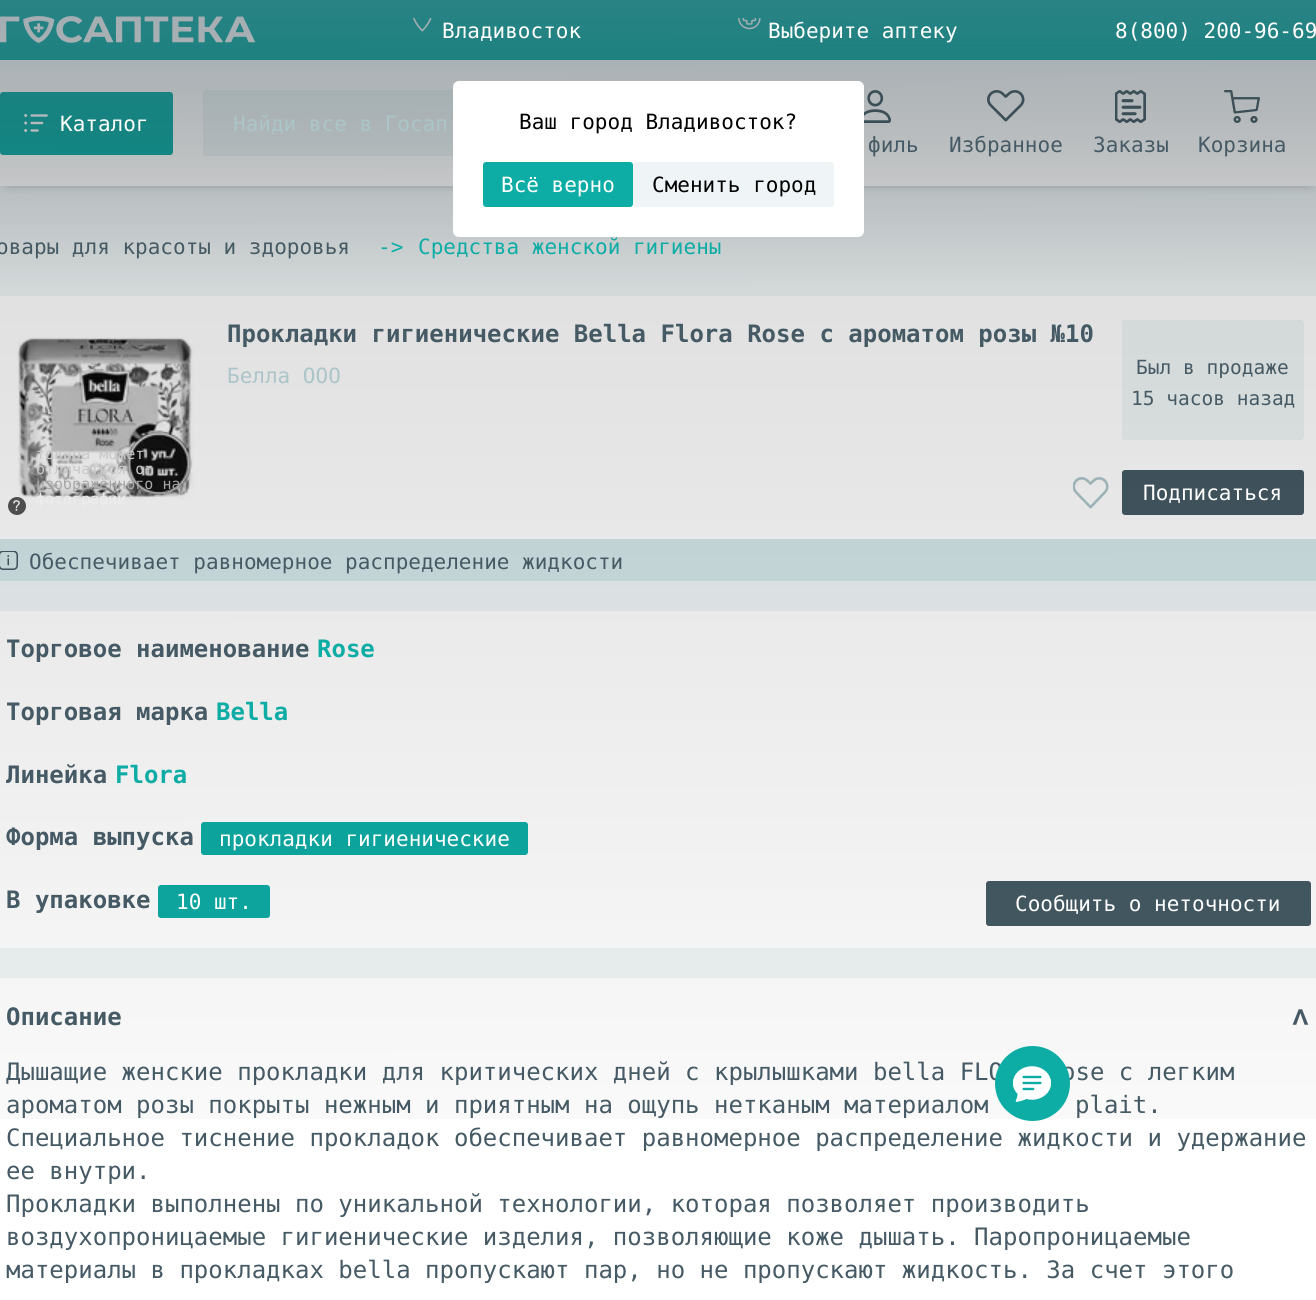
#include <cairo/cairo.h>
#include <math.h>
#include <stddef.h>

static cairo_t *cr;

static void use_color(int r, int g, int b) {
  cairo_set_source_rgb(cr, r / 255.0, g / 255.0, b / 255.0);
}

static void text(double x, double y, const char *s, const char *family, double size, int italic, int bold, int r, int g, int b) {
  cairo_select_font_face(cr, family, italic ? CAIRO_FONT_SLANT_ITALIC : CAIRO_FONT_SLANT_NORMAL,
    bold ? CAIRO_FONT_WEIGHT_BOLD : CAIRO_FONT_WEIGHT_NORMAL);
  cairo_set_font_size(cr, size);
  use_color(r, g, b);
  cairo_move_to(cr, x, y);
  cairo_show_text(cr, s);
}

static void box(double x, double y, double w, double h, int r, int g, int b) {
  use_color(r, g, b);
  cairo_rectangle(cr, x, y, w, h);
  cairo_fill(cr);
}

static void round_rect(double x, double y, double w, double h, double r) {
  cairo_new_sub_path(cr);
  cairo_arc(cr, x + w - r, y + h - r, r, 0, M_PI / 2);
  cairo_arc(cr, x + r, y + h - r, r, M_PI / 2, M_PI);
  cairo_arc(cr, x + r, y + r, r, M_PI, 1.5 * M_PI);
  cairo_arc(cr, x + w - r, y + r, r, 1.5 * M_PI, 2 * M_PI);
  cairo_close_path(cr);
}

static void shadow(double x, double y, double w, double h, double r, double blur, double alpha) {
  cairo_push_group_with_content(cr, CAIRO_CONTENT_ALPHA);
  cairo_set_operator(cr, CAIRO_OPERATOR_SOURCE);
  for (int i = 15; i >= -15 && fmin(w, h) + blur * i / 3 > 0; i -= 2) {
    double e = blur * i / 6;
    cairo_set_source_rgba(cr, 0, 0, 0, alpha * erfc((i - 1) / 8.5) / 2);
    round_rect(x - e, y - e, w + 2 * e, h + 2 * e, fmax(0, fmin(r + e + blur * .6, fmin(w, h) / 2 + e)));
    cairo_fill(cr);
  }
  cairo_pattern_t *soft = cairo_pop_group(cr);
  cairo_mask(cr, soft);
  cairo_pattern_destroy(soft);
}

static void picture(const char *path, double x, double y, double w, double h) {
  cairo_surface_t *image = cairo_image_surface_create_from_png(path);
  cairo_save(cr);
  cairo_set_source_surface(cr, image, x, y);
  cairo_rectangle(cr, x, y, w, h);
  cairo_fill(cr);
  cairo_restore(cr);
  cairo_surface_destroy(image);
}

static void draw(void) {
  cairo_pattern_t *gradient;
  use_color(239, 245, 246);
  cairo_paint(cr);
  use_color(0, 0, 0);
  shadow(9, 9, 1299, 168, 0, 7.5, 1);
  box(0, 0, 1316, 60, 13, 172, 165);
  picture("img_01.png", 0, 16, 255, 27);
  picture("img_02.png", 413, 18, 19, 14);
  picture("img_03.png", 738, 18, 23, 12);
  box(0, 60, 1316, 126, 255, 255, 255);
  use_color(13, 172, 165);
  round_rect(0, 92, 173, 63, 3);
  cairo_fill(cr);
  picture("img_04.png", 24, 114, 24, 18);
  use_color(239, 245, 246);
  cairo_new_path(cr);
  cairo_move_to(cr, 206, 90);
  cairo_line_to(cr, 617, 90);
  cairo_line_to(cr, 617, 156);
  cairo_line_to(cr, 206, 156);
  cairo_curve_to(cr, 204.5, 156, 203, 154.5, 203, 153);
  cairo_line_to(cr, 203, 93);
  cairo_curve_to(cr, 203, 91.5, 204.5, 90, 206, 90);
  cairo_close_path(cr);
  cairo_fill(cr);
  picture("img_05.png", 864, 90, 27, 33);
  picture("img_06.png", 987, 90, 38, 32);
  picture("img_07.png", 1115, 90, 31, 33);
  picture("img_08.png", 1224, 90, 36, 33);
  box(0, 296, 1316, 243, 255, 255, 255);
  use_color(239, 245, 246);
  round_rect(1122, 320, 182, 120, 3);
  cairo_fill(cr);
  picture("img_10.png", 17, 337, 177, 163);
  use_color(86, 86, 86);
  cairo_arc(cr, 17, 506, 9, 0, 2 * M_PI);
  cairo_fill(cr);
  picture("img_11.png", 13, 500, 7, 11);
  picture("img_12.png", 1073, 477, 36, 32);
  use_color(69, 90, 100);
  round_rect(1122, 470, 182, 45, 3);
  cairo_fill(cr);
  box(0, 539, 1316, 42, 213, 232, 235);
  picture("img_13.png", 0, 551, 18, 19);
  box(0, 611, 1316, 337, 255, 255, 255);
  use_color(13, 172, 165);
  round_rect(201, 822, 327, 33, 3);
  cairo_fill(cr);
  round_rect(158, 885, 112, 33, 3);
  cairo_fill(cr);
  use_color(69, 90, 100);
  round_rect(986, 881, 325, 45, 3);
  cairo_fill(cr);
  box(0, 978, 1316, 322, 255, 255, 255);
  gradient = cairo_pattern_create_linear(658, 0, 659, 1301);
  cairo_pattern_add_color_stop_rgba(gradient, 0, 0.271, 0.353, 0.392, 0.5);
  cairo_pattern_add_color_stop_rgba(gradient, 0.22, 0, 0, 0, 0.12);
  cairo_pattern_add_color_stop_rgba(gradient, 1, 0, 0, 0, 0);
  cairo_set_source(cr, gradient);
  cairo_pattern_destroy(gradient);
  cairo_rectangle(cr, 0, 0, 1316, 1119);
  cairo_fill(cr);
  use_color(255, 255, 255);
  round_rect(453, 81, 411, 156, 6);
  cairo_fill(cr);
  use_color(13, 172, 165);
  round_rect(483, 162, 150, 45, 3);
  cairo_fill(cr);
  use_color(239, 245, 246);
  round_rect(633, 162, 201, 45, 3);
  cairo_fill(cr);
  text(442, 38, "Владивосток", "DejaVu Sans Mono", 21, 0, 0, 255, 255, 255);
  text(768, 38, "Выберите аптеку", "DejaVu Sans Mono", 21, 0, 0, 255, 255, 255);
  text(1115, 38, "8(800) 200-96-69", "DejaVu Sans Mono", 21, 0, 0, 255, 255, 255);
  text(519, 129, "Ваш город Владивосток?", "DejaVu Sans Mono", 21, 0, 0, 0, 0, 0);
  text(501, 192, "Всё верно", "DejaVu Sans Mono", 21, 0, 0, 255, 255, 255);
  text(652, 192, "Сменить город", "DejaVu Sans Mono", 21, 0, 0, 0, 0, 0);
  text(60, 131, "Каталог", "DejaVu Sans Mono", 21, 0, 0, 255, 255, 255);
  text(233, 131, "Найди все в Госап", "DejaVu Sans Mono", 21, 0, 0, 172, 197, 201);
  text(868, 152, "филь", "DejaVu Sans Mono", 21, 0, 0, 69, 90, 100);
  text(949, 152, "Избранное", "DejaVu Sans Mono", 21, 0, 0, 69, 90, 100);
  text(1093, 152, "Заказы", "DejaVu Sans Mono", 21, 0, 0, 69, 90, 100);
  text(1198, 152, "Корзина", "DejaVu Sans Mono", 21, 0, 0, 69, 90, 100);
  text(-4, 254, "овары для красоты и здоровья", "DejaVu Sans Mono", 21, 0, 0, 69, 90, 100);
  text(378, 254, "->", "DejaVu Sans Mono", 21, 0, 0, 13, 172, 165);
  text(418, 254, "Средства женской гигиены", "DejaVu Sans Mono", 21, 0, 0, 13, 172, 165);
  text(227, 342, "Прокладки гигиенические Bella Flora Rose с ароматом розы №10", "DejaVu Sans Mono", 24, 0, 1, 69, 90, 100);
  text(227, 383, "Белла ООО", "DejaVu Sans Mono", 21, 0, 0, 172, 197, 201);
  text(1136, 374, "Был в продаже", "DejaVu Sans Mono", 19.5, 0, 0, 69, 90, 100);
  text(1131, 405, "15 часов назад", "DejaVu Sans Mono", 19.5, 0, 0, 69, 90, 100);
  text(36, 459, "товара может", "DejaVu Sans Mono", 15, 0, 0, 200, 200, 200);
  text(36, 474, "отличаться от", "DejaVu Sans Mono", 15, 0, 0, 200, 200, 200);
  text(36, 489, "изображённого на", "DejaVu Sans Mono", 15, 0, 0, 168, 168, 168);
  text(36, 504, "фотографии", "DejaVu Sans Mono", 15, 0, 0, 236, 236, 236);
  text(1143, 500, "Подписаться", "DejaVu Sans Mono", 21, 0, 0, 255, 255, 255);
  text(29, 569, "Обеспечивает равномерное распределение жидкости", "DejaVu Sans Mono", 21, 0, 0, 69, 90, 100);
  text(6, 657, "Торговое наименование", "DejaVu Sans Mono", 24, 0, 1, 69, 90, 100);
  text(317, 657, "Rose", "DejaVu Sans Mono", 24, 0, 1, 13, 172, 165);
  text(6, 720, "Торговая марка", "DejaVu Sans Mono", 24, 0, 1, 69, 90, 100);
  text(216, 720, "Bella", "DejaVu Sans Mono", 24, 0, 1, 13, 172, 165);
  text(6, 783, "Линейка", "DejaVu Sans Mono", 24, 0, 1, 69, 90, 100);
  text(115, 783, "Flora", "DejaVu Sans Mono", 24, 0, 1, 13, 172, 165);
  text(6, 845, "Форма выпуска", "DejaVu Sans Mono", 24, 0, 1, 69, 90, 100);
  text(219, 846, "прокладки гигиенические", "DejaVu Sans Mono", 21, 0, 0, 255, 255, 255);
  text(6, 908, "В упаковке", "DejaVu Sans Mono", 24, 0, 1, 69, 90, 100);
  text(176, 909, "10 шт.", "DejaVu Sans Mono", 21, 0, 0, 255, 255, 255);
  text(1015, 911, "Сообщить о неточности", "DejaVu Sans Mono", 21, 0, 0, 255, 255, 255);
  text(6, 1025, "Описание", "DejaVu Sans Mono", 24, 0, 1, 69, 90, 100);
  cairo_save(cr);
  cairo_translate(cr, 1291, 1008);
  cairo_rotate(cr, 90 * M_PI / 180);
  text(0, 0, "<", "DejaVu Sans Mono", 30, 0, 1, 69, 90, 100);
  cairo_restore(cr);
  text(6, 1080, "Дышащие женские прокладки для критических дней с крылышками bella FLO", "DejaVu Sans Mono", 24, 0, 0, 69, 90, 100);
  text(1061, 1080, "ose с легким", "DejaVu Sans Mono", 24, 0, 0, 69, 90, 100);
  picture("img_09.png", 995, 1046, 75, 75);
  text(6, 1113, "ароматом розы покрыты нежным и приятным на ощупь нетканым материалом", "DejaVu Sans Mono", 24, 0, 0, 69, 90, 100);
  text(1075, 1113, "plait.", "DejaVu Sans Mono", 24, 0, 0, 69, 90, 100);
  text(6, 1146, "Специальное тиснение прокладок обеспечивает равномерное распределение жидкости и удержание", "DejaVu Sans Mono", 24, 0, 0, 69, 90, 100);
  text(6, 1179, "ее внутри.", "DejaVu Sans Mono", 24, 0, 0, 69, 90, 100);
  text(6, 1212, "Прокладки выполнены по уникальной технологии, которая позволяет производить", "DejaVu Sans Mono", 24, 0, 0, 69, 90, 100);
  text(6, 1245, "воздухопроницаемые гигиенические изделия, позволяющие коже дышать. Паропроницаемые", "DejaVu Sans Mono", 24, 0, 0, 69, 90, 100);
  text(6, 1278, "материалы в прокладках bella пропускают пар, но не пропускают жидкость. За счет этого", "DejaVu Sans Mono", 24, 0, 0, 69, 90, 100);
}

int main(void) {
  cairo_surface_t *surface = cairo_image_surface_create(CAIRO_FORMAT_RGB24, 1316, 1300);
  cr = cairo_create(surface);
  cairo_font_options_t *options = cairo_font_options_create();
  cairo_font_options_set_hint_metrics(options, CAIRO_HINT_METRICS_OFF);
  cairo_font_options_set_hint_style(options, CAIRO_HINT_STYLE_NONE);
  cairo_set_font_options(cr, options);
  cairo_set_miter_limit(cr, 4);
  draw();
  cairo_surface_write_to_png(surface, "out.png");
  cairo_font_options_destroy(options);
  cairo_destroy(cr);
  cairo_surface_destroy(surface);
  return 0;
}
